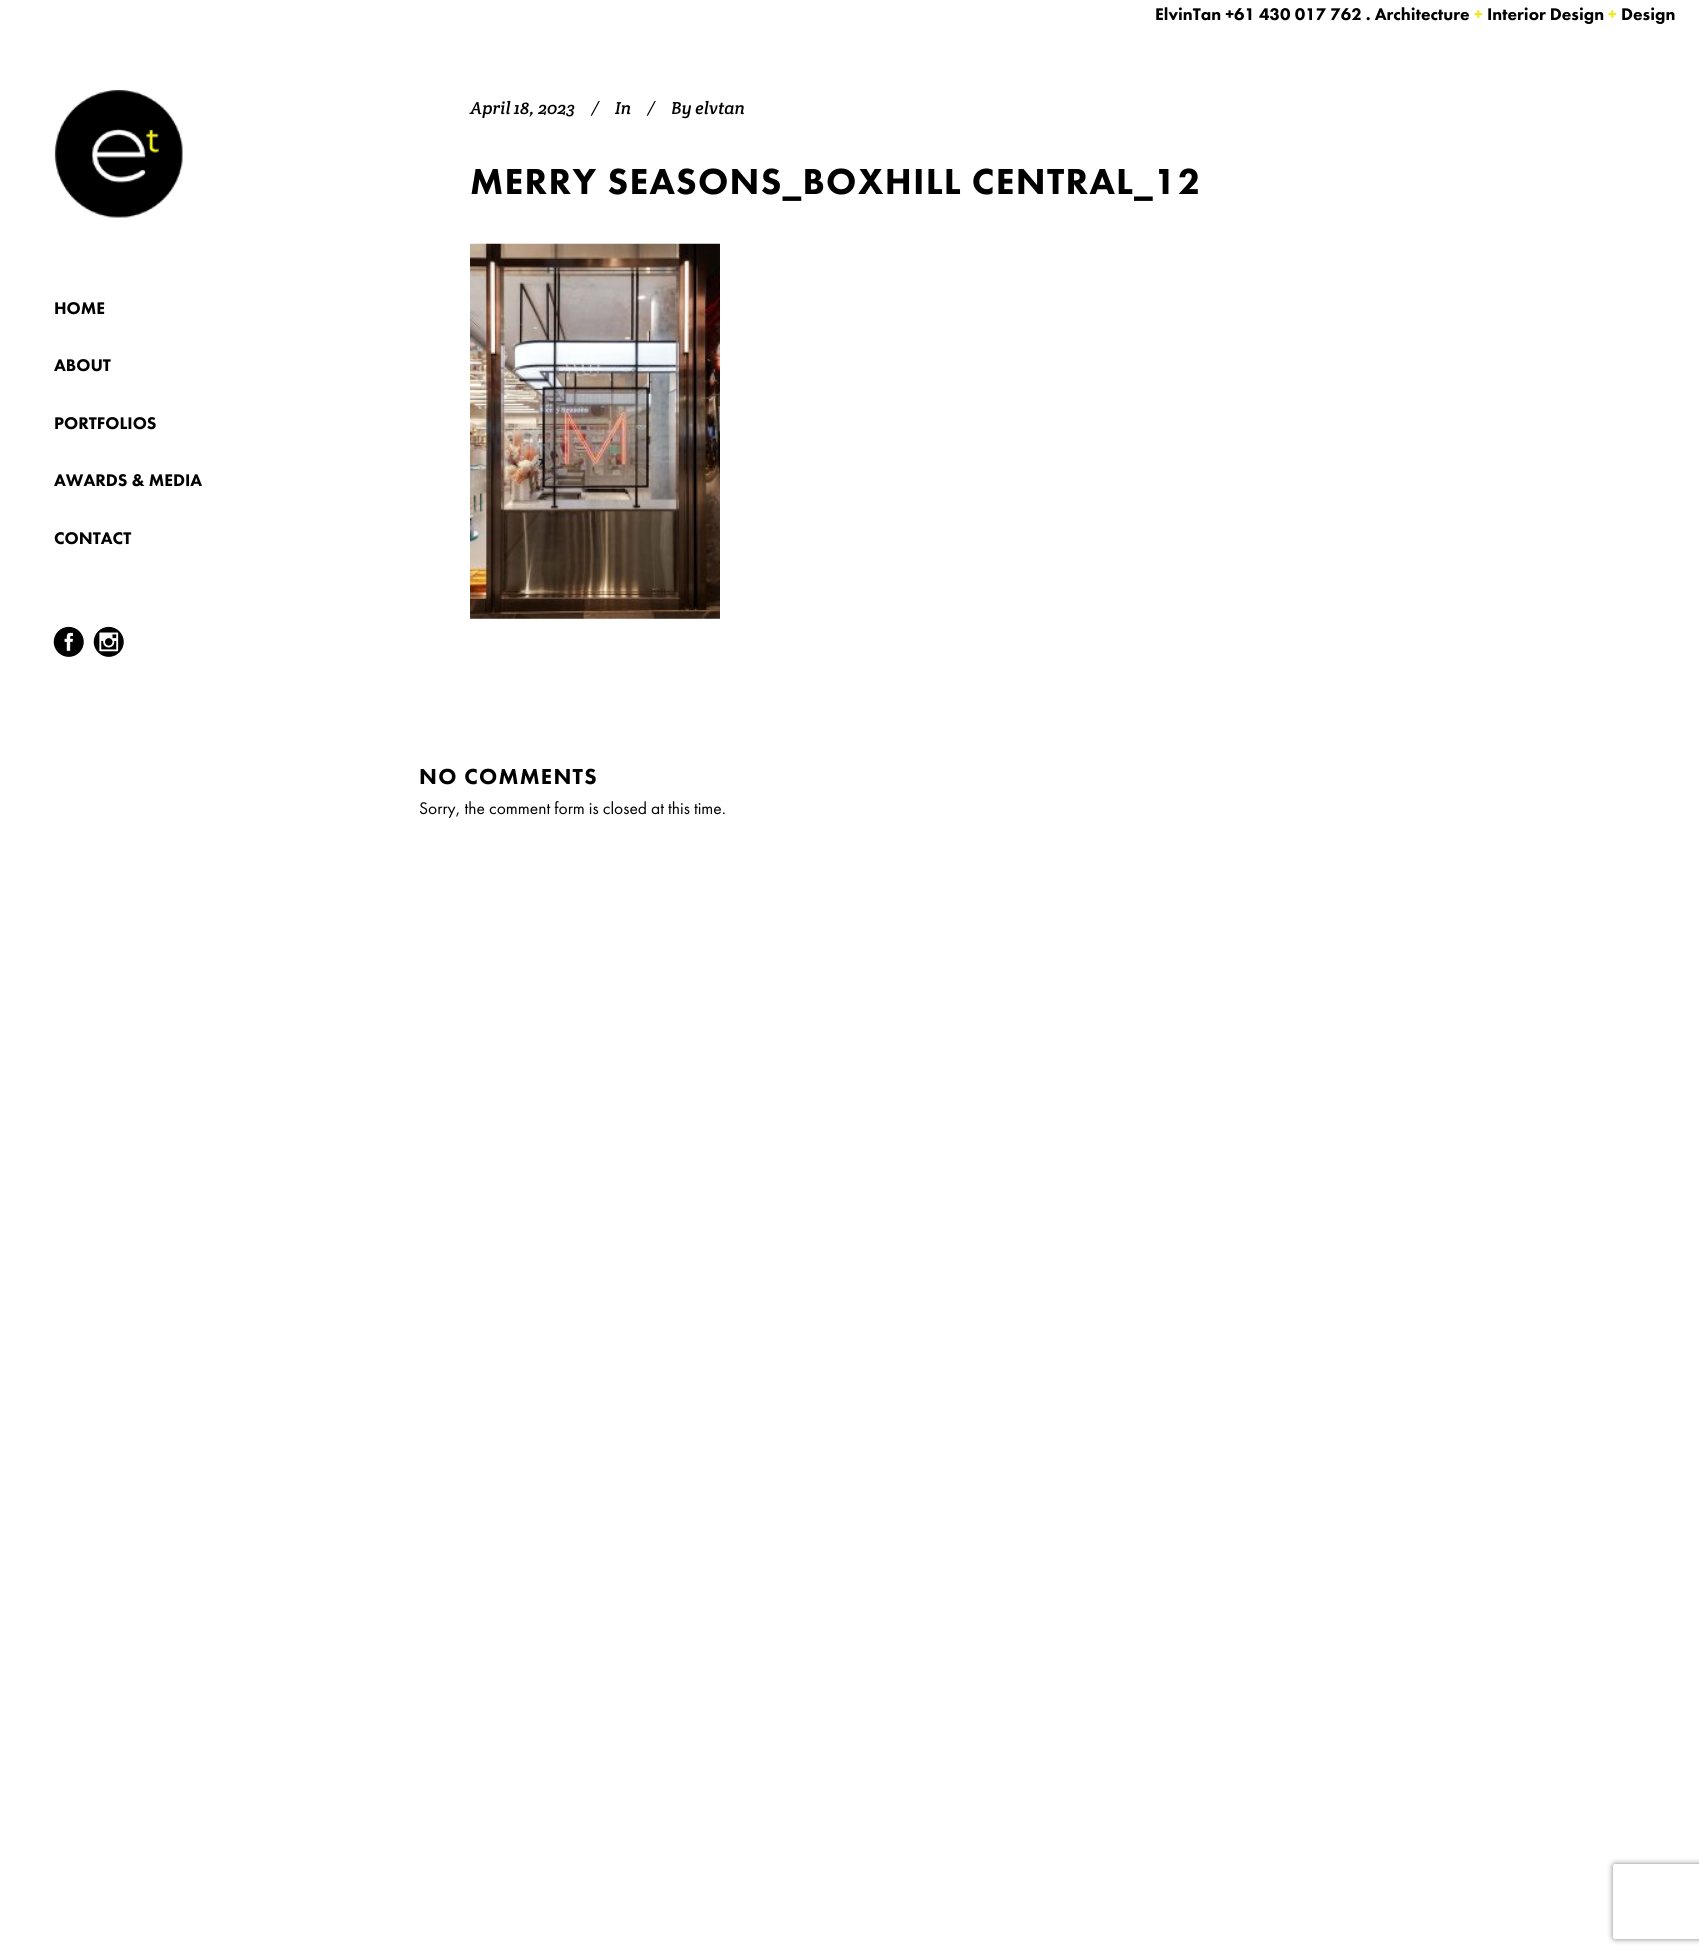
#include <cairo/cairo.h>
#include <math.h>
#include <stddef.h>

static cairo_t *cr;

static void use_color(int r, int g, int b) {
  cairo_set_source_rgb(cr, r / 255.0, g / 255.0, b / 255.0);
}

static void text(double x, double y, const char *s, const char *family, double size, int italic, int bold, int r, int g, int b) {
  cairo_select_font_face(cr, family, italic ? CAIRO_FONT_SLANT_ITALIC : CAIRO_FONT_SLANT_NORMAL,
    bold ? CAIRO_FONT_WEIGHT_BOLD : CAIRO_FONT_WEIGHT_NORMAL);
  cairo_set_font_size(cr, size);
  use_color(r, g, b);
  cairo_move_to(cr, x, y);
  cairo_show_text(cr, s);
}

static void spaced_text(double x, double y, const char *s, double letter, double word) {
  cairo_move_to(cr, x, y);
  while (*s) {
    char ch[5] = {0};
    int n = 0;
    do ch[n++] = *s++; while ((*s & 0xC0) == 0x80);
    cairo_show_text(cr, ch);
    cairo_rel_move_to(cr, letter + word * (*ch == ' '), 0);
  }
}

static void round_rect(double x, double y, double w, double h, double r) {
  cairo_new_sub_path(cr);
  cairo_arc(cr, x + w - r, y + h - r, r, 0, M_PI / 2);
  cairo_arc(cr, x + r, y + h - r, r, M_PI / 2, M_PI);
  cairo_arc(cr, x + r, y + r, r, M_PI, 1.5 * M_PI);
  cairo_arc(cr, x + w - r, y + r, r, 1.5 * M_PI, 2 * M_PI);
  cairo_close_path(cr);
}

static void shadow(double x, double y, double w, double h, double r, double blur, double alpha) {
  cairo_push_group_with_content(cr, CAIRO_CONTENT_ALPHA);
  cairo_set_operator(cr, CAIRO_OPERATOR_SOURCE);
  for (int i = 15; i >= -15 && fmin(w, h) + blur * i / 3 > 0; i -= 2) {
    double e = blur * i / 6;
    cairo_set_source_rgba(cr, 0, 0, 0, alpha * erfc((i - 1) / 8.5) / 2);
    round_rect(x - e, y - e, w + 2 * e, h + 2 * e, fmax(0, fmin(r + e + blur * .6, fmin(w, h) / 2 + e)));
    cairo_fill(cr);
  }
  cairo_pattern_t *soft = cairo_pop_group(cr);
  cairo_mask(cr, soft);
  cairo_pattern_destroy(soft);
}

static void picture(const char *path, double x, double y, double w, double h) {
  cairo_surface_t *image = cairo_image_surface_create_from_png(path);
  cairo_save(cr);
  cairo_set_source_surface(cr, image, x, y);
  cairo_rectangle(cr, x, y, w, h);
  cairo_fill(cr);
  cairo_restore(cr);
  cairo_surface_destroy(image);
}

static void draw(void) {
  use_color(255, 255, 255);
  cairo_paint(cr);
  picture("img_01.png", 54, 90, 129, 128);
  picture("img_02.png", 53, 626, 31, 31);
  picture("img_03.png", 93, 626, 31, 31);
  picture("img_04.png", 470, 243, 250, 376);
  cairo_save(cr);
  cairo_set_fill_rule(cr, CAIRO_FILL_RULE_EVEN_ODD);
  cairo_new_path(cr);
  cairo_move_to(cr, 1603, 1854);
  cairo_line_to(cr, 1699, 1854);
  cairo_line_to(cr, 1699, 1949);
  cairo_line_to(cr, 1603, 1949);
  cairo_close_path(cr);
  cairo_move_to(cr, 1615.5, 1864);
  cairo_line_to(cr, 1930.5, 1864);
  cairo_curve_to(cr, 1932, 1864, 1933, 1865, 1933, 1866.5);
  cairo_line_to(cr, 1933, 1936.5);
  cairo_curve_to(cr, 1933, 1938, 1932, 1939, 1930.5, 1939);
  cairo_line_to(cr, 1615.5, 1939);
  cairo_curve_to(cr, 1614, 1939, 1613, 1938, 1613, 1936.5);
  cairo_line_to(cr, 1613, 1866.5);
  cairo_curve_to(cr, 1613, 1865, 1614, 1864, 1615.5, 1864);
  cairo_close_path(cr);
  cairo_clip(cr);
  use_color(128, 128, 128);
  shadow(1613, 1864, 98, 75, 2.5, 3, 1);
  cairo_restore(cr);
  text(1155, 20, "ElvinTan +61 430 017 762 . Architecture", "Futura PT Black", 17.5, 0, 0, 0, 0, 0);
  text(1474, 20, "+", "Futura PT Black", 17.5, 0, 0, 241, 233, 25);
  text(1487, 20, "Interior Design", "Futura PT Black", 17.5, 0, 0, 0, 0, 0);
  text(1608, 20, "+", "Futura PT Black", 17.5, 0, 0, 241, 233, 25);
  text(1621, 20, "Design", "Futura PT Black", 17.5, 0, 0, 0, 0, 0);
  text(54, 314, "HOME", "Futura PT Black", 17.5, 0, 0, 0, 0, 0);
  text(54, 371, "ABOUT", "Futura PT Black", 17.5, 0, 0, 0, 0, 0);
  text(54, 429, "PORTFOLIOS", "Futura PT Black", 17.5, 0, 0, 0, 0, 0);
  text(54, 486, "AWARDS & MEDIA", "Futura PT Black", 17.5, 0, 0, 0, 0, 0);
  text(54, 544, "CONTACT", "Futura PT Black", 17.5, 0, 0, 0, 0, 0);
  text(470, 114, "April 18, 2023", "Crete Round", 17.5, 1, 0, 0, 0, 0);
  text(591, 114, "/", "Crete Round", 17.5, 1, 0, 0, 0, 0);
  text(615, 114, "In", "Crete Round", 17.5, 1, 0, 0, 0, 0);
  text(647, 114, "/", "Crete Round", 17.5, 1, 0, 0, 0, 0);
  text(671, 114, "By elvtan", "Crete Round", 17.5, 1, 0, 0, 0, 0);
  cairo_select_font_face(cr, "Futura PT Black", CAIRO_FONT_SLANT_NORMAL, CAIRO_FONT_WEIGHT_NORMAL);
  cairo_set_font_size(cr, 37.5);
  spaced_text(470, 194, "MERRY SEASONS_BOXHILL CENTRAL_12", 1.25, 0);
  cairo_set_font_size(cr, 22.5);
  spaced_text(419, 784, "NO COMMENTS", 1.25, 0);
  text(419, 814, "Sorry, the comment form is closed at this time.", "Futura PT", 17.5, 0, 0, 0, 0, 0);
}

int main(void) {
  cairo_surface_t *surface = cairo_image_surface_create(CAIRO_FORMAT_RGB24, 1699, 1956);
  cr = cairo_create(surface);
  cairo_font_options_t *options = cairo_font_options_create();
  cairo_font_options_set_hint_metrics(options, CAIRO_HINT_METRICS_OFF);
  cairo_font_options_set_hint_style(options, CAIRO_HINT_STYLE_NONE);
  cairo_set_font_options(cr, options);
  cairo_set_miter_limit(cr, 4);
  draw();
  cairo_surface_write_to_png(surface, "out.png");
  cairo_font_options_destroy(options);
  cairo_destroy(cr);
  cairo_surface_destroy(surface);
  return 0;
}
